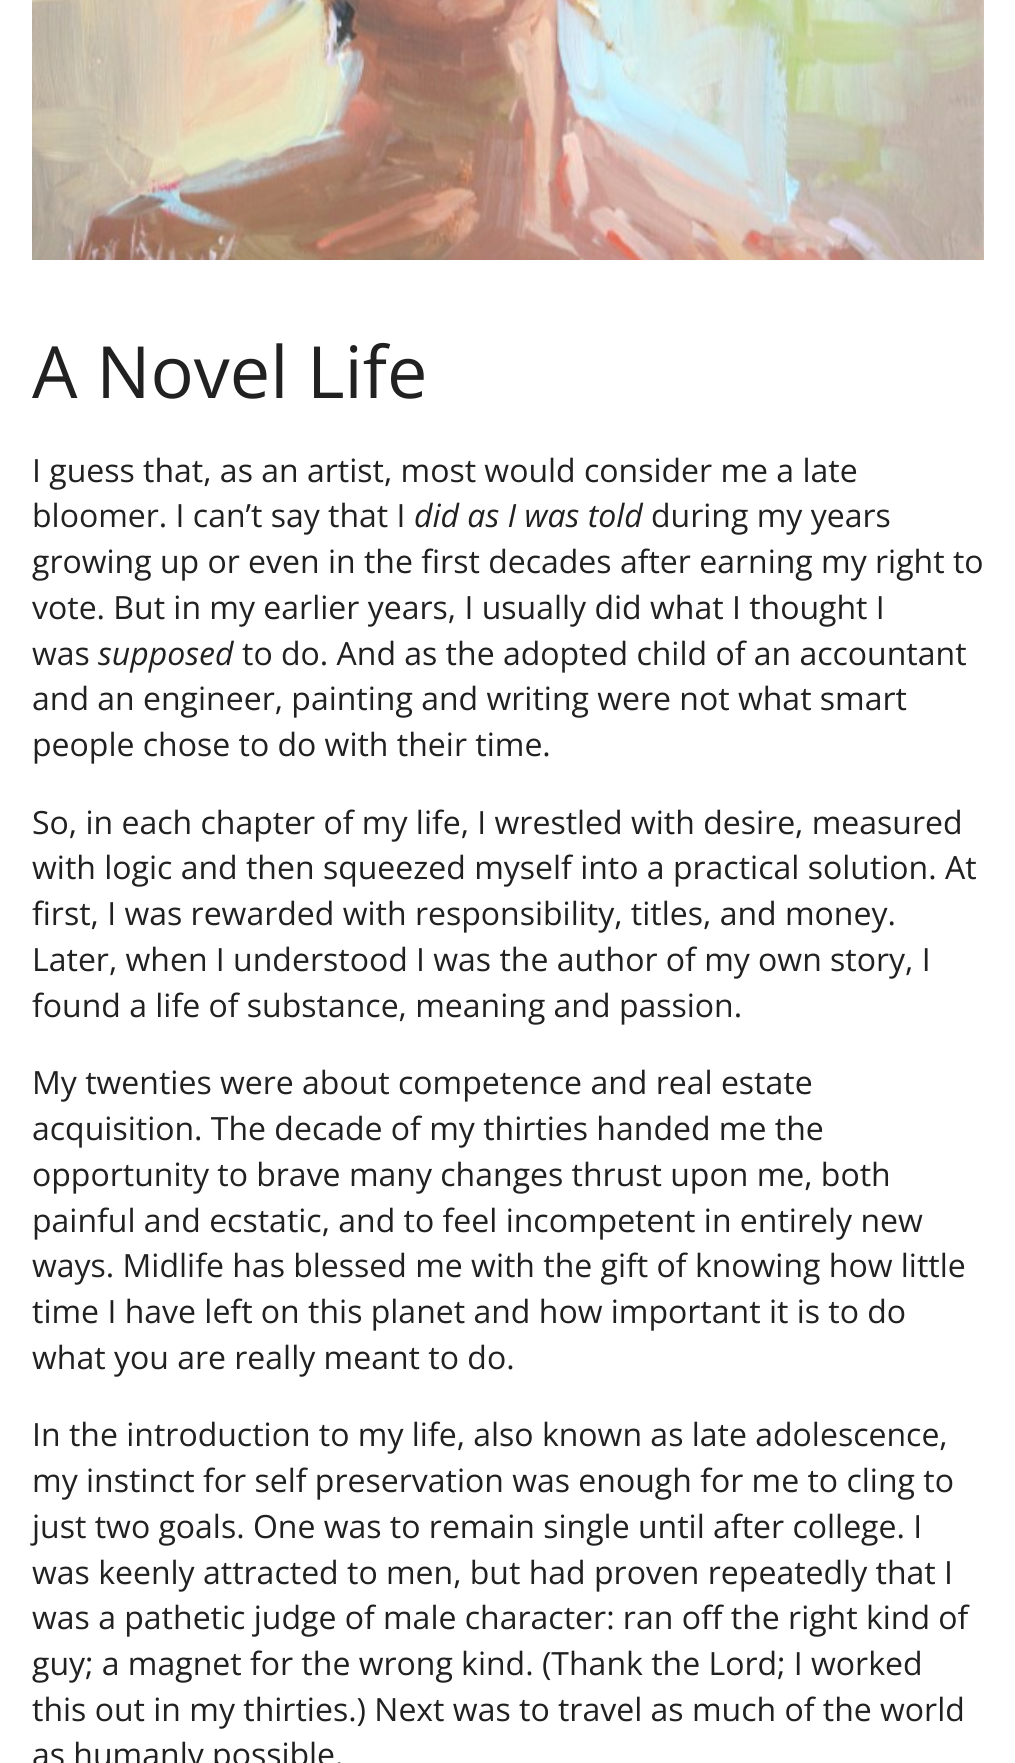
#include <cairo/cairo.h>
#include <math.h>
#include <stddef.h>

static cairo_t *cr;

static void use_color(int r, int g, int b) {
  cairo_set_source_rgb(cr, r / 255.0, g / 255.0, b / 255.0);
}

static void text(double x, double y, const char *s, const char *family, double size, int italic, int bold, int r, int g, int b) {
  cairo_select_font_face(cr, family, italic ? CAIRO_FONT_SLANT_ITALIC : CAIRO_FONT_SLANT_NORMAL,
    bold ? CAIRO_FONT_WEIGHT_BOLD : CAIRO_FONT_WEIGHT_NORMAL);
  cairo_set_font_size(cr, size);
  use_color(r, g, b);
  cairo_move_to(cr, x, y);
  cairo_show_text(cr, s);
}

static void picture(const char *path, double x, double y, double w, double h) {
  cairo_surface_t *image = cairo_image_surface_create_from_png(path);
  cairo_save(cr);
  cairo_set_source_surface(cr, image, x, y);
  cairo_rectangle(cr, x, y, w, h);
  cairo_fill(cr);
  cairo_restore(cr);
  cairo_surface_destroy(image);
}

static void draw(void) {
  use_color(255, 255, 255);
  cairo_paint(cr);
  picture("img_01.png", 32, 0, 952, 260);
  text(32, 398, "A Novel Life", "Open Sans", 72, 0, 0, 33, 33, 33);
  text(32, 482, "I guess that, as an artist, most would consider me a late", "Open Sans", 32, 0, 0, 33, 33, 33);
  text(32, 527, "bloomer. I can’t say that I", "Open Sans", 32, 0, 0, 33, 33, 33);
  text(414, 527, "did as I was told", "Open Sans", 32, 1, 0, 33, 33, 33);
  text(651, 527, "during my years", "Open Sans", 32, 0, 0, 33, 33, 33);
  text(32, 573, "growing up or even in the first decades after earning my right to", "Open Sans", 32, 0, 0, 33, 33, 33);
  text(32, 619, "vote. But in my earlier years, I usually did what I thought I", "Open Sans", 32, 0, 0, 33, 33, 33);
  text(32, 665, "was", "Open Sans", 32, 0, 0, 33, 33, 33);
  text(98, 665, "supposed", "Open Sans", 32, 1, 0, 33, 33, 33);
  text(242, 665, "to do. And as the adopted child of an accountant", "Open Sans", 32, 0, 0, 33, 33, 33);
  text(32, 710, "and an engineer, painting and writing were not what smart", "Open Sans", 32, 0, 0, 33, 33, 33);
  text(32, 756, "people chose to do with their time.", "Open Sans", 32, 0, 0, 33, 33, 33);
  text(32, 834, "So, in each chapter of my life, I wrestled with desire, measured", "Open Sans", 32, 0, 0, 33, 33, 33);
  text(32, 879, "with logic and then squeezed myself into a practical solution. At", "Open Sans", 32, 0, 0, 33, 33, 33);
  text(32, 925, "first, I was rewarded with responsibility, titles, and money.", "Open Sans", 32, 0, 0, 33, 33, 33);
  text(32, 971, "Later, when I understood I was the author of my own story, I", "Open Sans", 32, 0, 0, 33, 33, 33);
  text(32, 1017, "found a life of substance, meaning and passion.", "Open Sans", 32, 0, 0, 33, 33, 33);
  text(32, 1094, "My twenties were about competence and real estate", "Open Sans", 32, 0, 0, 33, 33, 33);
  text(32, 1140, "acquisition. The decade of my thirties handed me the", "Open Sans", 32, 0, 0, 33, 33, 33);
  text(32, 1186, "opportunity to brave many changes thrust upon me, both", "Open Sans", 32, 0, 0, 33, 33, 33);
  text(32, 1232, "painful and ecstatic, and to feel incompetent in entirely new", "Open Sans", 32, 0, 0, 33, 33, 33);
  text(32, 1277, "ways. Midlife has blessed me with the gift of knowing how little", "Open Sans", 32, 0, 0, 33, 33, 33);
  text(32, 1323, "time I have left on this planet and how important it is to do", "Open Sans", 32, 0, 0, 33, 33, 33);
  text(32, 1369, "what you are really meant to do.", "Open Sans", 32, 0, 0, 33, 33, 33);
  text(32, 1446, "In the introduction to my life, also known as late adolescence,", "Open Sans", 32, 0, 0, 33, 33, 33);
  text(32, 1492, "my instinct for self preservation was enough for me to cling to", "Open Sans", 32, 0, 0, 33, 33, 33);
  text(32, 1538, "just two goals. One was to remain single until after college. I", "Open Sans", 32, 0, 0, 33, 33, 33);
  text(32, 1584, "was keenly attracted to men, but had proven repeatedly that I", "Open Sans", 32, 0, 0, 33, 33, 33);
  text(32, 1629, "was a pathetic judge of male character: ran off the right kind of", "Open Sans", 32, 0, 0, 33, 33, 33);
  text(32, 1675, "guy; a magnet for the wrong kind. (Thank the Lord; I worked", "Open Sans", 32, 0, 0, 33, 33, 33);
  text(32, 1721, "this out in my thirties.) Next was to travel as much of the world", "Open Sans", 32, 0, 0, 33, 33, 33);
  text(32, 1766, "as humanly possible.", "Open Sans", 32, 0, 0, 33, 33, 33);
}

int main(void) {
  cairo_surface_t *surface = cairo_image_surface_create(CAIRO_FORMAT_RGB24, 1015, 1763);
  cr = cairo_create(surface);
  cairo_font_options_t *options = cairo_font_options_create();
  cairo_font_options_set_hint_metrics(options, CAIRO_HINT_METRICS_OFF);
  cairo_font_options_set_hint_style(options, CAIRO_HINT_STYLE_NONE);
  cairo_set_font_options(cr, options);
  cairo_set_miter_limit(cr, 4);
  draw();
  cairo_surface_write_to_png(surface, "out.png");
  cairo_font_options_destroy(options);
  cairo_destroy(cr);
  cairo_surface_destroy(surface);
  return 0;
}
